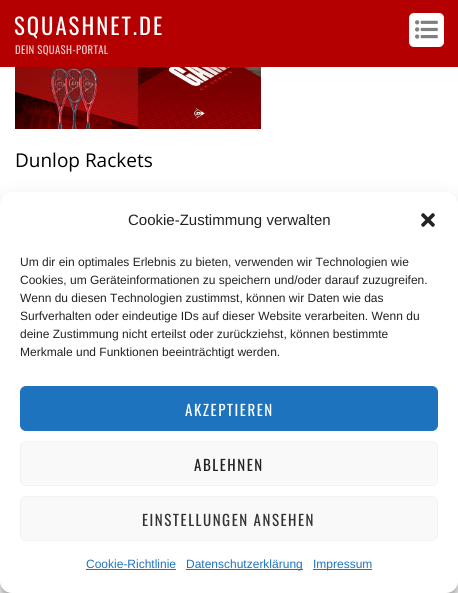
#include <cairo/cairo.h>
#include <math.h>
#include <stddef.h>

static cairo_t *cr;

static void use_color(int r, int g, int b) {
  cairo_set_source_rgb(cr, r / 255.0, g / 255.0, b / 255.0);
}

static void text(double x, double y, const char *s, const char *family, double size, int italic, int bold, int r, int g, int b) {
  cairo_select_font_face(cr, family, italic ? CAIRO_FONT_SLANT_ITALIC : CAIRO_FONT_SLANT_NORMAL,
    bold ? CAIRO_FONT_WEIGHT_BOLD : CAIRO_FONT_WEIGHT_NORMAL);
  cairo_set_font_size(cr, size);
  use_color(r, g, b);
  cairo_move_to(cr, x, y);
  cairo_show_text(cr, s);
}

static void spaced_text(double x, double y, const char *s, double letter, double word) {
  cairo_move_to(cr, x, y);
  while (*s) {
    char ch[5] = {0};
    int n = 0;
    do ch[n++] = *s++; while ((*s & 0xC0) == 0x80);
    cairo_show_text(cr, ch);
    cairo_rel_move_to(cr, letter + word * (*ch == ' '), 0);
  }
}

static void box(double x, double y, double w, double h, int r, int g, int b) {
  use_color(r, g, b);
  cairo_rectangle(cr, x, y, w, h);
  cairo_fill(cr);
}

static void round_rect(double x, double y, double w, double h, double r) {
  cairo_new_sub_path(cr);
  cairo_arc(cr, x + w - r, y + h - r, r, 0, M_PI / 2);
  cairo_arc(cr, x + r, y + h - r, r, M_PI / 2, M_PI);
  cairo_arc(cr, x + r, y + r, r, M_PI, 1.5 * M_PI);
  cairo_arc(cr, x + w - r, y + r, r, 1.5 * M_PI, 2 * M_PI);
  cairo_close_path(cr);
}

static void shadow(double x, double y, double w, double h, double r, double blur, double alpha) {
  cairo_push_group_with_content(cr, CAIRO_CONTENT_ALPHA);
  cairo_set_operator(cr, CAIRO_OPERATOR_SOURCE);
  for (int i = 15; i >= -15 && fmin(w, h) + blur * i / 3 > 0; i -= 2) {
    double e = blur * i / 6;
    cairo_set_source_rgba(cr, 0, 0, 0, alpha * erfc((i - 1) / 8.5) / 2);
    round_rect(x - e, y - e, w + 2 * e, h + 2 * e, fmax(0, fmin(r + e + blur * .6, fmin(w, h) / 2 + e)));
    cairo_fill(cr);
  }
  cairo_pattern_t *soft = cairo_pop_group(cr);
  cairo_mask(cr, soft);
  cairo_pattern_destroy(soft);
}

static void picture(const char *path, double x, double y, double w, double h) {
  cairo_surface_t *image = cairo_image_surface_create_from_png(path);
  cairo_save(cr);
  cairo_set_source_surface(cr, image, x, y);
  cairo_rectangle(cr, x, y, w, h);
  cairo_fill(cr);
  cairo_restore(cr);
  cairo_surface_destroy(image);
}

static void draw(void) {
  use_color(255, 255, 255);
  cairo_paint(cr);
  box(0, 0, 458, 67, 180, 0, 0);
  use_color(255, 255, 255);
  round_rect(409, 13, 35, 34, 5);
  cairo_fill(cr);
  picture("img_01.png", 415, 20, 23, 19);
  picture("img_02.png", 15, 67, 246, 62);
  use_color(0, 0, 0);
  shadow(0, 198, 458, 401, 12, 3, 0.23);
  shadow(0, 202, 458, 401, 12, 10, 0.19);
  use_color(255, 255, 255);
  round_rect(0, 192, 458, 401, 12);
  cairo_fill(cr);
  picture("img_03.png", 421, 213, 14, 14);
  use_color(30, 115, 190);
  round_rect(20.5, 386.5, 417, 44, 5.5);
  cairo_fill_preserve(cr);
  cairo_set_line_width(cr, 1);
  cairo_stroke(cr);
  use_color(249, 249, 249);
  round_rect(20.5, 441.5, 417, 44, 5.5);
  cairo_fill_preserve(cr);
  use_color(242, 242, 242);
  cairo_stroke(cr);
  use_color(249, 249, 249);
  round_rect(20.5, 496.5, 417, 44, 5.5);
  cairo_fill_preserve(cr);
  use_color(242, 242, 242);
  cairo_stroke(cr);
  box(86, 569, 90, 1, 30, 115, 190);
  box(186, 569, 117, 1, 30, 115, 190);
  box(313, 569, 59, 1, 30, 115, 190);
  cairo_select_font_face(cr, "Oswald", CAIRO_FONT_SLANT_NORMAL, CAIRO_FONT_WEIGHT_NORMAL);
  cairo_set_font_size(cr, 22.75);
  use_color(255, 255, 255);
  spaced_text(14, 35, "SQUASHNET.DE", 2, 0);
  cairo_set_font_size(cr, 10.75);
  use_color(240, 204, 204);
  spaced_text(15, 54, "DEIN SQUASH-PORTAL", 0.3, 0);
  text(15, 167, "Dunlop Rackets", "Open Sans", 19, 0, 0, 0, 0, 0);
  text(128, 225, "Cookie-Zustimmung verwalten", "Liberation Sans", 15, 0, 0, 34, 34, 34);
  text(20, 266, "Um dir ein optimales Erlebnis zu bieten, verwenden wir Technologien wie", "Liberation Sans", 12, 0, 0, 34, 34, 34);
  text(20, 284, "Cookies, um Geräteinformationen zu speichern und/oder darauf zuzugreifen.", "Liberation Sans", 12, 0, 0, 34, 34, 34);
  text(20, 302, "Wenn du diesen Technologien zustimmst, können wir Daten wie das", "Liberation Sans", 12, 0, 0, 34, 34, 34);
  text(20, 320, "Surfverhalten oder eindeutige IDs auf dieser Website verarbeiten. Wenn du", "Liberation Sans", 12, 0, 0, 34, 34, 34);
  text(20, 338, "deine Zustimmung nicht erteilst oder zurückziehst, können bestimmte", "Liberation Sans", 12, 0, 0, 34, 34, 34);
  text(20, 356, "Merkmale und Funktionen beeinträchtigt werden.", "Liberation Sans", 12, 0, 0, 34, 34, 34);
  cairo_select_font_face(cr, "Oswald", CAIRO_FONT_SLANT_NORMAL, CAIRO_FONT_WEIGHT_NORMAL);
  cairo_set_font_size(cr, 15);
  use_color(255, 255, 255);
  spaced_text(185, 416, "AKZEPTIEREN", 1.5, 0);
  use_color(34, 34, 34);
  spaced_text(194, 471, "ABLEHNEN", 1.5, 0);
  use_color(51, 51, 51);
  spaced_text(142, 526, "EINSTELLUNGEN ANSEHEN", 1.5, 0);
  text(86, 568, "Cookie-Richtlinie", "Liberation Sans", 12, 0, 0, 30, 115, 190);
  text(186, 568, "Datenschutzerklärung", "Liberation Sans", 12, 0, 0, 30, 115, 190);
  text(313, 568, "Impressum", "Liberation Sans", 12, 0, 0, 30, 115, 190);
}

int main(void) {
  cairo_surface_t *surface = cairo_image_surface_create(CAIRO_FORMAT_RGB24, 458, 593);
  cr = cairo_create(surface);
  cairo_font_options_t *options = cairo_font_options_create();
  cairo_font_options_set_hint_metrics(options, CAIRO_HINT_METRICS_OFF);
  cairo_font_options_set_hint_style(options, CAIRO_HINT_STYLE_NONE);
  cairo_set_font_options(cr, options);
  cairo_set_miter_limit(cr, 4);
  draw();
  cairo_surface_write_to_png(surface, "out.png");
  cairo_font_options_destroy(options);
  cairo_destroy(cr);
  cairo_surface_destroy(surface);
  return 0;
}
